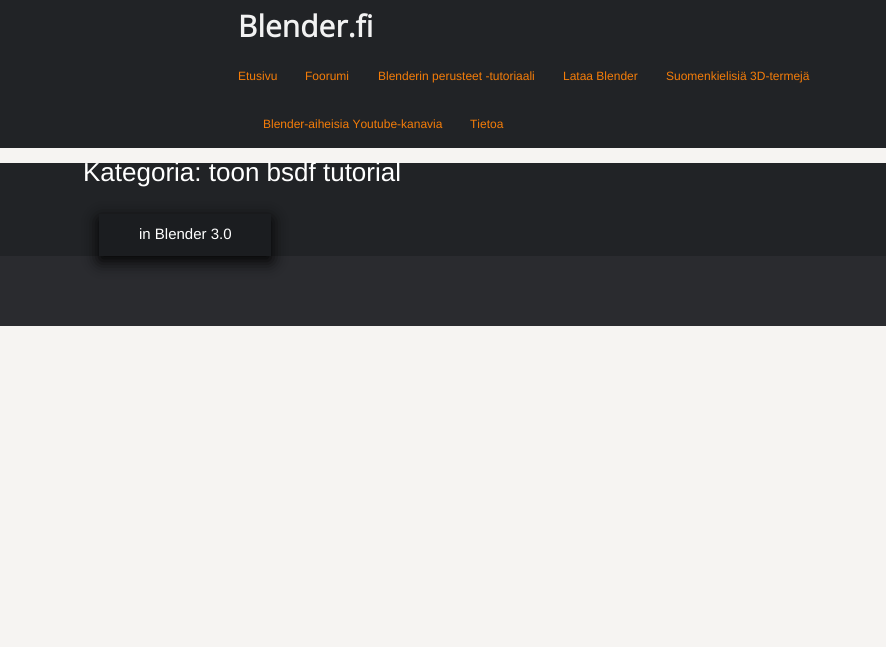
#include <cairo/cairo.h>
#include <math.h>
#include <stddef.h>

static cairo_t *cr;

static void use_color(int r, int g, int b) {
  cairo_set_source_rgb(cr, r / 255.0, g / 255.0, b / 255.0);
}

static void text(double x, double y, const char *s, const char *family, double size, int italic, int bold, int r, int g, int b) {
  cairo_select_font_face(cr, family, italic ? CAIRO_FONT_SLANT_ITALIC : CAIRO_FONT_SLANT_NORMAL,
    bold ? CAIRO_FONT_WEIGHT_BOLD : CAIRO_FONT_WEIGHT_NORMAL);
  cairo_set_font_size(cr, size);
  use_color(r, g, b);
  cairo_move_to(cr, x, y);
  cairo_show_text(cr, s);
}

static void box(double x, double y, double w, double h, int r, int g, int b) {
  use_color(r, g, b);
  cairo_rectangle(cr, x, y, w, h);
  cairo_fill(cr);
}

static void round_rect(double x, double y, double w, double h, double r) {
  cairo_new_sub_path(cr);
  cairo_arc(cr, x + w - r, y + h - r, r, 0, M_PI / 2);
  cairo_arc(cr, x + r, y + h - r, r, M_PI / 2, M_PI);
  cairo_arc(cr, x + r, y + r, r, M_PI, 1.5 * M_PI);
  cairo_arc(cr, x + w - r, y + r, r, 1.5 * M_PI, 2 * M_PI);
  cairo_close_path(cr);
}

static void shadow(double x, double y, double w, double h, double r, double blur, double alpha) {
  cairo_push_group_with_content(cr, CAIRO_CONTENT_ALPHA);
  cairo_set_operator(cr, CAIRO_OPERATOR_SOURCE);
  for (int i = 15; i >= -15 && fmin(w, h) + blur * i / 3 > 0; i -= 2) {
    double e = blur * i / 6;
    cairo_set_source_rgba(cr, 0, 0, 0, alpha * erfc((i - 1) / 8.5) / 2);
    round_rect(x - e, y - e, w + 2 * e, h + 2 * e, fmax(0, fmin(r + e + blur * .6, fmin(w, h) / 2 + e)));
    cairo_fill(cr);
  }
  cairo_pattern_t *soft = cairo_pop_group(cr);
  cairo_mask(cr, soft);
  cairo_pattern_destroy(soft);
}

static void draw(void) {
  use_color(246, 244, 242);
  cairo_paint(cr);
  box(0, 0, 886, 148, 33, 35, 38);
  box(0, 163, 886, 93, 33, 35, 38);
  box(99, 214, 172, 42, 27, 29, 32);
  box(0, 256, 886, 70, 42, 43, 47);
  cairo_save(cr);
  cairo_set_fill_rule(cr, CAIRO_FILL_RULE_EVEN_ODD);
  cairo_new_path(cr);
  cairo_move_to(cr, 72, 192);
  cairo_line_to(cr, 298, 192);
  cairo_line_to(cr, 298, 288);
  cairo_line_to(cr, 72, 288);
  cairo_close_path(cr);
  cairo_move_to(cr, 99, 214);
  cairo_line_to(cr, 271, 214);
  cairo_line_to(cr, 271, 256);
  cairo_line_to(cr, 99, 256);
  cairo_close_path(cr);
  cairo_clip(cr);
  use_color(0, 0, 0);
  shadow(99, 219, 172, 42, 0, 8.5, 1);
  cairo_restore(cr);
  text(238, 37, "Blender.fi", "Open Sans", 30, 0, 1, 242, 242, 242);
  text(238, 80, "Etusivu", "Liberation Sans", 12, 0, 0, 244, 124, 8);
  text(305, 80, "Foorumi", "Liberation Sans", 12, 0, 0, 244, 124, 8);
  text(378, 80, "Blenderin perusteet -tutoriaali", "Liberation Sans", 12, 0, 0, 244, 124, 8);
  text(563, 80, "Lataa Blender", "Liberation Sans", 12, 0, 0, 244, 124, 8);
  text(666, 80, "Suomenkielisiä 3D-termejä", "Liberation Sans", 12, 0, 0, 244, 124, 8);
  text(263, 128, "Blender-aiheisia Youtube-kanavia", "Liberation Sans", 12, 0, 0, 244, 124, 8);
  text(470, 128, "Tietoa", "Liberation Sans", 12, 0, 0, 244, 124, 8);
  text(83, 181, "Kategoria: toon bsdf tutorial", "Liberation Sans", 26, 0, 0, 255, 255, 255);
  text(139, 239, "in Blender 3.0", "Liberation Sans", 15, 0, 0, 255, 255, 255);
}

int main(void) {
  cairo_surface_t *surface = cairo_image_surface_create(CAIRO_FORMAT_RGB24, 886, 647);
  cr = cairo_create(surface);
  cairo_font_options_t *options = cairo_font_options_create();
  cairo_font_options_set_hint_metrics(options, CAIRO_HINT_METRICS_OFF);
  cairo_font_options_set_hint_style(options, CAIRO_HINT_STYLE_NONE);
  cairo_set_font_options(cr, options);
  cairo_set_miter_limit(cr, 4);
  draw();
  cairo_surface_write_to_png(surface, "out.png");
  cairo_font_options_destroy(options);
  cairo_destroy(cr);
  cairo_surface_destroy(surface);
  return 0;
}
